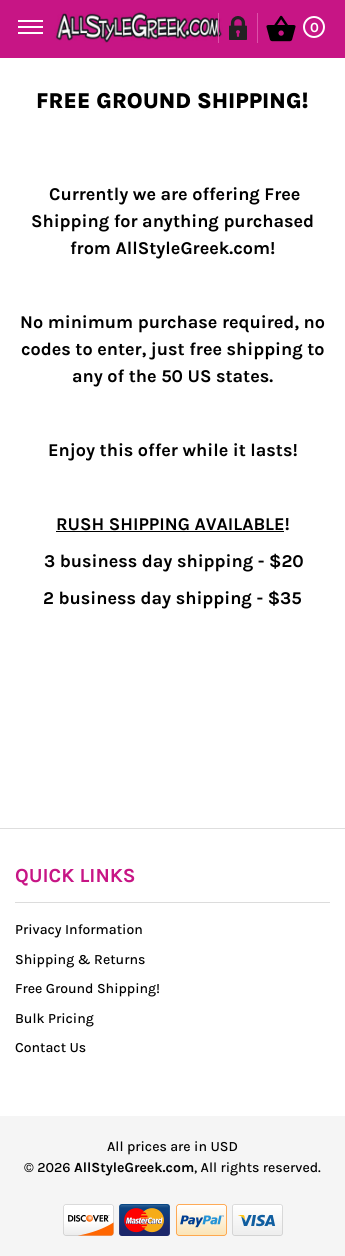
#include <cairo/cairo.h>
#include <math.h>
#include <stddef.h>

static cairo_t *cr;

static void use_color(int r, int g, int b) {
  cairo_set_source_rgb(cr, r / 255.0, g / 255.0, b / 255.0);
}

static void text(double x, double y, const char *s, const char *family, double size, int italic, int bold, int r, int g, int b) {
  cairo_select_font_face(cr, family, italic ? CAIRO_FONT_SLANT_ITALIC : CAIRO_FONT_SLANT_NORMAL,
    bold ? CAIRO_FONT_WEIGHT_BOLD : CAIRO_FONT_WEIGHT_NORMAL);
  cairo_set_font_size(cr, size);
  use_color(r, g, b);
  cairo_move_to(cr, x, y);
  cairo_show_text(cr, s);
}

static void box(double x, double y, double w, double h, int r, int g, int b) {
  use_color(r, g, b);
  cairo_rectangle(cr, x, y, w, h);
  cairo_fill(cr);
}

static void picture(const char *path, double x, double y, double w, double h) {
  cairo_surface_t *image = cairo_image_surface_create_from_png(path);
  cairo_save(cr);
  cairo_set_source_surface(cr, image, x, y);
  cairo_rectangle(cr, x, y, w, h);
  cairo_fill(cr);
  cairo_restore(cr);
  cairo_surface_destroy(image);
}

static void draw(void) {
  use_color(255, 255, 255);
  cairo_paint(cr);
  box(0, 0, 345, 58, 199, 21, 133);
  box(18, 26, 25, 2, 255, 255, 255);
  box(18, 20, 25, 2, 255, 255, 255);
  box(18, 32, 25, 2, 255, 255, 255);
  picture("img_01.png", 54, 11, 169, 32);
  box(257, 13, 1, 30, 221, 81, 169);
  box(218, 13, 1, 30, 221, 81, 169);
  picture("img_02.png", 229, 16, 18, 24);
  picture("img_03.png", 266, 15, 30, 27);
  cairo_arc(cr, 314, 27, 10, 0, 2 * M_PI);
  use_color(255, 255, 255);
  cairo_stroke(cr);
  box(56, 531, 228, 1, 0, 0, 0);
  box(0, 828, 345, 1, 222, 222, 222);
  box(15, 902, 315, 1, 220, 220, 220);
  box(0, 1116, 345, 140, 245, 245, 245);
  picture("img_04.png", 63, 1204, 220, 32);
  text(310, 32, "0", "Karla", 14, 0, 1, 255, 255, 255);
  text(36, 108, "FREE GROUND SHIPPING!", "Karla ExtraBold", 22, 0, 0, 0, 0, 0);
  text(49, 200, "Currently we are offering Free", "Karla", 18, 0, 1, 0, 0, 0);
  text(31, 227, "Shipping for anything purchased", "Karla", 18, 0, 1, 0, 0, 0);
  text(70, 254, "from AllStyleGreek.com!", "Karla", 18, 0, 1, 0, 0, 0);
  text(20, 328, "No minimum purchase required, no", "Karla", 18, 0, 1, 0, 0, 0);
  text(21, 355, "codes to enter, just free shipping to", "Karla", 18, 0, 1, 0, 0, 0);
  text(72, 382, "any of the 50 US states.", "Karla", 18, 0, 1, 0, 0, 0);
  text(48, 456, "Enjoy this offer while it lasts!", "Karla", 18, 0, 1, 0, 0, 0);
  text(56, 530, "RUSH SHIPPING AVAILABLE!", "Karla", 18, 0, 1, 0, 0, 0);
  text(44, 567, "3 business day shipping - $20", "Karla", 18, 0, 1, 0, 0, 0);
  text(43, 604, "2 business day shipping - $35", "Karla", 18, 0, 1, 0, 0, 0);
  text(15, 882, "QUICK LINKS", "Karla", 20, 0, 1, 199, 21, 133);
  text(15, 934, "Privacy Information", "Karla Medium", 14, 0, 0, 0, 0, 0);
  text(15, 964, "Shipping & Returns", "Karla Medium", 14, 0, 0, 0, 0, 0);
  text(15, 993, "Free Ground Shipping!", "Karla Medium", 14, 0, 0, 0, 0, 0);
  text(15, 1023, "Bulk Pricing", "Karla Medium", 14, 0, 0, 0, 0, 0);
  text(15, 1052, "Contact Us", "Karla Medium", 14, 0, 0, 0, 0, 0);
  text(107, 1151, "All prices are in USD", "Karla Medium", 14, 0, 0, 0, 0, 0);
  text(24, 1172, "© 2026", "Karla Medium", 14, 0, 0, 0, 0, 0);
  text(74, 1172, "AllStyleGreek.com", "Karla", 14, 0, 1, 0, 0, 0);
  text(194, 1172, ", All rights reserved.", "Karla Medium", 14, 0, 0, 0, 0, 0);
}

int main(void) {
  cairo_surface_t *surface = cairo_image_surface_create(CAIRO_FORMAT_RGB24, 345, 1256);
  cr = cairo_create(surface);
  cairo_font_options_t *options = cairo_font_options_create();
  cairo_font_options_set_hint_metrics(options, CAIRO_HINT_METRICS_OFF);
  cairo_font_options_set_hint_style(options, CAIRO_HINT_STYLE_NONE);
  cairo_set_font_options(cr, options);
  cairo_set_miter_limit(cr, 4);
  draw();
  cairo_surface_write_to_png(surface, "out.png");
  cairo_font_options_destroy(options);
  cairo_destroy(cr);
  cairo_surface_destroy(surface);
  return 0;
}
